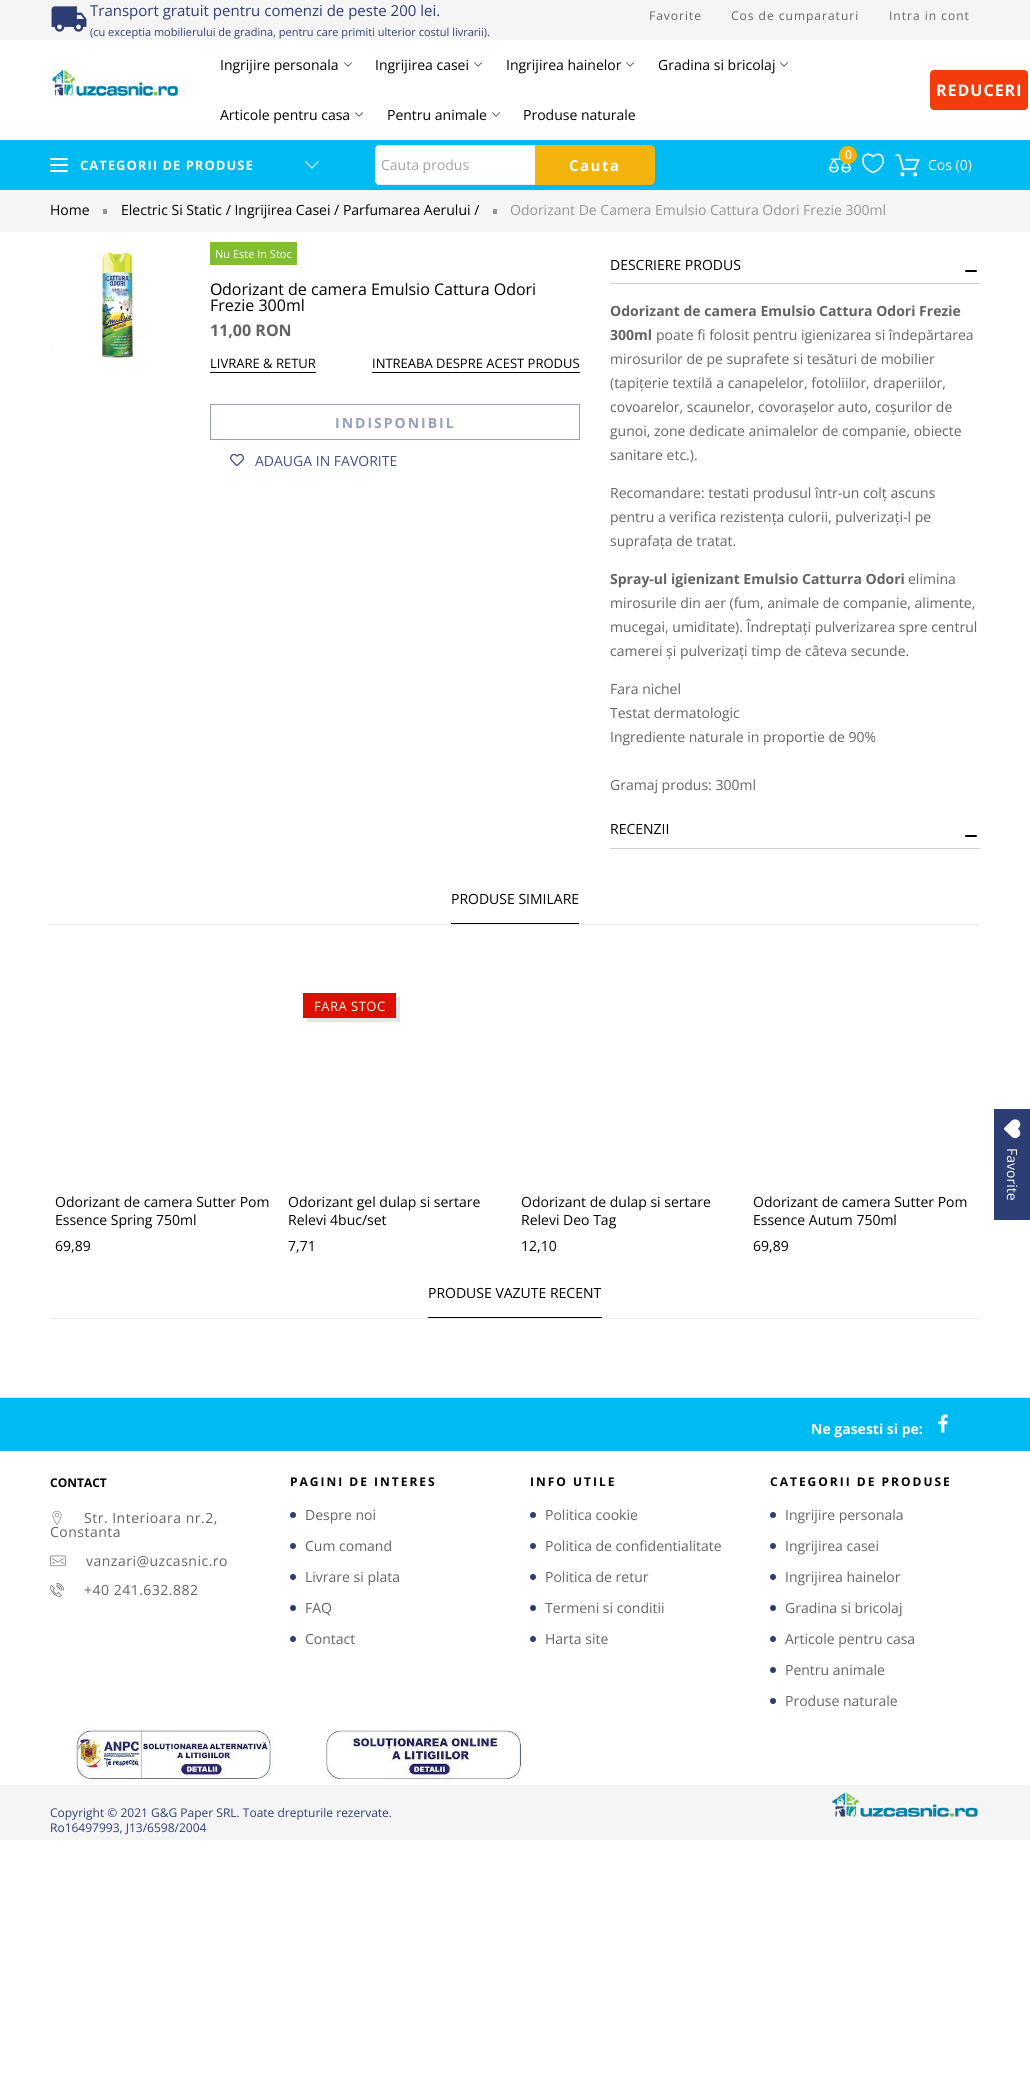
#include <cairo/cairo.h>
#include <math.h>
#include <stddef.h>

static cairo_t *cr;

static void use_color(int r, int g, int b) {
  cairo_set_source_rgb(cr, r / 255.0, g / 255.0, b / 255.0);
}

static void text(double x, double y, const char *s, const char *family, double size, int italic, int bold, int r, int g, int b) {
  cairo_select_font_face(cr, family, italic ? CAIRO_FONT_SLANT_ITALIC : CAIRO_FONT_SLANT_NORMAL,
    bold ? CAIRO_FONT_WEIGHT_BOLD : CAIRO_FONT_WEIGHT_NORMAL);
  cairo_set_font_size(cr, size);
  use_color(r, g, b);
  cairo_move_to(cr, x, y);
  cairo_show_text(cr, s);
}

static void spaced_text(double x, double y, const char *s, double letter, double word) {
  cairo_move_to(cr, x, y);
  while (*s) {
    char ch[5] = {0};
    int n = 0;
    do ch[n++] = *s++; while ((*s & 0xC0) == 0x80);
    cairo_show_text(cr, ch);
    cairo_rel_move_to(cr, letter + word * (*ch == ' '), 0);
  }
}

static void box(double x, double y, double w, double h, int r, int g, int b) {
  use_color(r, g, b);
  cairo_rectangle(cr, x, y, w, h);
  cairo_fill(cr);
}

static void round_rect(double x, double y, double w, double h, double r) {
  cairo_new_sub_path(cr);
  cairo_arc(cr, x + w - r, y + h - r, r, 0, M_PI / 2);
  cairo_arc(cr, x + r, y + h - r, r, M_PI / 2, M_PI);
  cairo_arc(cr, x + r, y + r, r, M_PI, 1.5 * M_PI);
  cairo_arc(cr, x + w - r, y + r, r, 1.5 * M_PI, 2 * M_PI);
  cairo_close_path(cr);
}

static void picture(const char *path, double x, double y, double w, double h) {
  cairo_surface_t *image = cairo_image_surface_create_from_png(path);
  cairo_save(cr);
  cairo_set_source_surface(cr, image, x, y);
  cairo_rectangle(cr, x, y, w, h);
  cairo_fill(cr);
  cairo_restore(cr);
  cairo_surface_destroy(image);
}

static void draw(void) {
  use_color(255, 255, 255);
  cairo_paint(cr);
  box(0, 0, 1030, 40, 245, 245, 245);
  picture("img_01.png", 51, 6, 36, 26);
  picture("img_02.png", 52, 70, 127, 26);
  picture("img_03.png", 344, 62, 8, 5);
  picture("img_03.png", 474, 62, 8, 5);
  picture("img_03.png", 626, 62, 8, 5);
  picture("img_03.png", 780, 62, 8, 5);
  picture("img_03.png", 355, 112, 8, 5);
  picture("img_03.png", 492, 112, 8, 5);
  use_color(242, 60, 12);
  round_rect(930, 70, 98, 40, 4);
  cairo_fill(cr);
  box(0, 140, 1030, 50, 0, 186, 242);
  box(50, 164, 18, 2, 255, 255, 255);
  box(50, 158, 18, 2, 255, 255, 255);
  box(50, 170, 18, 2, 255, 255, 255);
  picture("img_04.png", 305, 161, 14, 8);
  cairo_new_path(cr);
  cairo_move_to(cr, 380, 145);
  cairo_line_to(cr, 535, 145);
  cairo_line_to(cr, 535, 185);
  cairo_line_to(cr, 380, 185);
  cairo_curve_to(cr, 377, 185, 375, 183, 375, 180);
  cairo_line_to(cr, 375, 150);
  cairo_curve_to(cr, 375, 147, 377, 145, 380, 145);
  cairo_close_path(cr);
  cairo_fill(cr);
  use_color(231, 231, 231);
  cairo_set_fill_rule(cr, CAIRO_FILL_RULE_EVEN_ODD);
  cairo_new_path(cr);
  cairo_move_to(cr, 380, 145);
  cairo_line_to(cr, 535, 145);
  cairo_line_to(cr, 535, 185);
  cairo_line_to(cr, 380, 185);
  cairo_curve_to(cr, 377, 185, 375, 183, 375, 180);
  cairo_line_to(cr, 375, 150);
  cairo_curve_to(cr, 375, 147, 377, 145, 380, 145);
  cairo_close_path(cr);
  cairo_move_to(cr, 380, 146);
  cairo_line_to(cr, 535, 146);
  cairo_line_to(cr, 535, 184);
  cairo_line_to(cr, 380, 184);
  cairo_curve_to(cr, 378, 184, 376, 182, 376, 180);
  cairo_line_to(cr, 376, 150);
  cairo_curve_to(cr, 376, 148, 378, 146, 380, 146);
  cairo_close_path(cr);
  cairo_fill(cr);
  use_color(242, 179, 12);
  cairo_new_path(cr);
  cairo_move_to(cr, 535, 145);
  cairo_line_to(cr, 650, 145);
  cairo_curve_to(cr, 653, 145, 655, 147, 655, 150);
  cairo_line_to(cr, 655, 180);
  cairo_curve_to(cr, 655, 183, 653, 185, 650, 185);
  cairo_line_to(cr, 535, 185);
  cairo_close_path(cr);
  cairo_fill(cr);
  picture("img_05.png", 829, 154, 22, 19);
  cairo_arc(cr, 848, 155, 9, 0, 2 * M_PI);
  cairo_fill(cr);
  picture("img_06.png", 862, 153, 22, 21);
  picture("img_07.png", 895, 154, 25, 23);
  box(0, 190, 1030, 42, 245, 245, 245);
  box(103, 209, 4, 5, 149, 149, 149);
  box(493, 209, 4, 5, 149, 149, 149);
  picture("img_08.png", 51, 252, 83, 106);
  box(210, 242, 87, 23, 129, 191, 48);
  box(210, 372, 106, 1, 0, 0, 0);
  box(372, 372, 208, 1, 0, 0, 0);
  cairo_rectangle(cr, 210.5, 404.5, 369, 35);
  use_color(150, 159, 186);
  cairo_set_line_width(cr, 1);
  cairo_stroke(cr);
  picture("img_09.png", 230, 453, 14, 14);
  box(610, 283, 370, 1, 206, 206, 206);
  use_color(0, 0, 0);
  round_rect(965, 270, 12, 2, 1);
  cairo_fill(cr);
  box(610, 848, 370, 1, 206, 206, 206);
  use_color(0, 0, 0);
  round_rect(965, 835, 12, 2, 1);
  cairo_fill(cr);
  box(50, 924, 930, 1, 235, 235, 235);
  box(451, 923, 128, 1, 0, 0, 0);
  use_color(230, 230, 230);
  cairo_set_fill_rule(cr, CAIRO_FILL_RULE_WINDING);
  cairo_new_path(cr);
  cairo_move_to(cr, 307, 1018);
  cairo_line_to(cr, 307, 1022);
  cairo_line_to(cr, 400, 1022);
  cairo_line_to(cr, 400, 997);
  cairo_line_to(cr, 396, 997);
  cairo_line_to(cr, 396, 1018);
  cairo_close_path(cr);
  cairo_fill(cr);
  box(303, 993, 93, 25, 219, 16, 0);
  box(50, 1318, 930, 1, 235, 235, 235);
  box(428, 1317, 174, 1, 0, 0, 0);
  box(0, 1397, 1030, 1, 222, 226, 230);
  box(0, 1398, 1030, 53, 0, 186, 242);
  picture("img_10.png", 938, 1414, 10, 19);
  picture("img_11.png", 52, 1510, 10, 15);
  picture("img_12.png", 50, 1555, 16, 12);
  picture("img_13.png", 50, 1582, 14, 15);
  use_color(45, 62, 116);
  cairo_arc(cr, 293, 1515, 3, 0, 2 * M_PI);
  cairo_fill(cr);
  cairo_arc(cr, 293, 1546, 3, 0, 2 * M_PI);
  cairo_fill(cr);
  cairo_arc(cr, 293, 1577, 3, 0, 2 * M_PI);
  cairo_fill(cr);
  cairo_arc(cr, 293, 1608, 3, 0, 2 * M_PI);
  cairo_fill(cr);
  cairo_arc(cr, 293, 1639, 3, 0, 2 * M_PI);
  cairo_fill(cr);
  cairo_arc(cr, 533, 1515, 3, 0, 2 * M_PI);
  cairo_fill(cr);
  cairo_arc(cr, 533, 1546, 3, 0, 2 * M_PI);
  cairo_fill(cr);
  cairo_arc(cr, 533, 1577, 3, 0, 2 * M_PI);
  cairo_fill(cr);
  cairo_arc(cr, 533, 1608, 3, 0, 2 * M_PI);
  cairo_fill(cr);
  cairo_arc(cr, 533, 1639, 3, 0, 2 * M_PI);
  cairo_fill(cr);
  cairo_arc(cr, 773, 1515, 3, 0, 2 * M_PI);
  cairo_fill(cr);
  cairo_arc(cr, 773, 1546, 3, 0, 2 * M_PI);
  cairo_fill(cr);
  cairo_arc(cr, 773, 1577, 3, 0, 2 * M_PI);
  cairo_fill(cr);
  cairo_arc(cr, 773, 1608, 3, 0, 2 * M_PI);
  cairo_fill(cr);
  cairo_arc(cr, 773, 1639, 3, 0, 2 * M_PI);
  cairo_fill(cr);
  cairo_arc(cr, 773, 1670, 3, 0, 2 * M_PI);
  cairo_fill(cr);
  cairo_arc(cr, 773, 1701, 3, 0, 2 * M_PI);
  cairo_fill(cr);
  picture("img_14.png", 74, 1730, 200, 50);
  picture("img_15.png", 324, 1730, 200, 50);
  box(0, 1785, 1030, 55, 245, 245, 245);
  picture("img_16.png", 832, 1792, 146, 25);
  box(994, 1109, 36, 111, 45, 62, 116);
  picture("img_17.png", 1003, 1119, 18, 20);
  text(90, 16, "Transport gratuit pentru comenzi de peste 200 lei.", "Open Sans", 15, 0, 0, 45, 62, 116);
  text(90, 36, "(cu exceptia mobilierului de gradina, pentru care primiti ulterior costul livrarii).", "Open Sans", 11, 0, 0, 45, 62, 116);
  cairo_set_font_size(cr, 12);
  use_color(99, 99, 99);
  spaced_text(649, 20, "Favorite", 1, 0);
  spaced_text(731, 20, "Cos de cumparaturi", 1, 0);
  spaced_text(889, 20, "Intra in cont", 1, 0);
  text(220, 70, "Ingrijire personala", "Open Sans", 14, 0, 0, 0, 0, 0);
  text(375, 70, "Ingrijirea casei", "Open Sans", 14, 0, 0, 0, 0, 0);
  text(506, 70, "Ingrijirea hainelor", "Open Sans", 14, 0, 0, 0, 0, 0);
  text(658, 70, "Gradina si bricolaj", "Open Sans", 14, 0, 0, 0, 0, 0);
  text(220, 120, "Articole pentru casa", "Open Sans", 14, 0, 0, 0, 0, 0);
  text(387, 120, "Pentru animale", "Open Sans", 14, 0, 0, 0, 0, 0);
  text(523, 120, "Produse naturale", "Open Sans", 14, 0, 0, 0, 0, 0);
  cairo_select_font_face(cr, "Open Sans", CAIRO_FONT_SLANT_NORMAL, CAIRO_FONT_WEIGHT_BOLD);
  cairo_set_font_size(cr, 16);
  use_color(255, 255, 255);
  spaced_text(936, 96, "REDUCERI", 1, 0);
  cairo_set_font_size(cr, 13);
  spaced_text(80, 170, "CATEGORII DE PRODUSE", 1, 0);
  text(381, 170, "Cauta produs", "Open Sans", 14, 0, 0, 161, 161, 161);
  cairo_select_font_face(cr, "Open Sans", CAIRO_FONT_SLANT_NORMAL, CAIRO_FONT_WEIGHT_BOLD);
  cairo_set_font_size(cr, 15);
  use_color(255, 255, 255);
  spaced_text(569, 171, "Cauta", 1.5, 0);
  text(845, 159, "0", "Open Sans Medium", 12, 0, 0, 255, 255, 255);
  text(928, 170, "Cos (0)", "Open Sans", 14, 0, 0, 255, 255, 255);
  text(50, 215, "Home", "Open Sans", 14, 0, 0, 0, 0, 0);
  text(121, 215, "Electric Si Static / Ingrijirea Casei / Parfumarea Aerului /", "Open Sans", 14, 0, 0, 0, 0, 0);
  text(510, 215, "Odorizant De Camera Emulsio Cattura Odori Frezie 300ml", "Open Sans", 14, 0, 0, 149, 149, 149);
  text(215, 258, "Nu Este In Stoc", "Open Sans", 11, 0, 0, 255, 255, 255);
  text(210, 295, "O", "Noto Sans", 16, 0, 0, 0, 0, 0);
  text(222, 295, "dorizant de camera Emulsio Cattura Odori", "Open Sans", 16, 0, 0, 0, 0, 0);
  text(210, 311, "Frezie 300ml", "Open Sans", 16, 0, 0, 0, 0, 0);
  text(210, 336, "11,00 RON", "Open Sans", 16, 0, 1, 99, 99, 99);
  text(210, 368, "LIVRARE & RETUR", "Open Sans", 13, 0, 0, 0, 0, 0);
  text(372, 368, "INTREABA DESPRE ACEST PRODUS", "Open Sans", 13, 0, 0, 0, 0, 0);
  cairo_select_font_face(cr, "Open Sans", CAIRO_FONT_SLANT_NORMAL, CAIRO_FONT_WEIGHT_BOLD);
  cairo_set_font_size(cr, 14);
  use_color(150, 159, 186);
  spaced_text(335, 428, "INDISPONIBIL", 2, 0);
  text(255, 466, "ADAUGA IN FAVORITE", "Open Sans", 14, 0, 0, 66, 81, 130);
  text(610, 270, "DESCRIERE PRODUS", "Open Sans", 14, 0, 0, 0, 0, 0);
  text(610, 316, "Odorizant de camera Emulsio Cattura Odori Frezie", "Open Sans", 14, 0, 1, 99, 99, 99);
  text(610, 340, "300ml", "Open Sans", 14, 0, 1, 99, 99, 99);
  text(656, 340, "poate fi folosit pentru igienizarea si îndepărtarea", "Open Sans", 14, 0, 0, 99, 99, 99);
  text(610, 364, "mirosurilor de pe suprafete si tesături de mobilier", "Open Sans", 14, 0, 0, 99, 99, 99);
  text(610, 388, "(tapițerie textilă a canapelelor, fotoliilor, draperiilor,", "Open Sans", 14, 0, 0, 99, 99, 99);
  text(610, 412, "covoarelor, scaunelor, covorașelor auto, coșurilor de", "Open Sans", 14, 0, 0, 99, 99, 99);
  text(610, 436, "gunoi, zone dedicate animalelor de companie, obiecte", "Open Sans", 14, 0, 0, 99, 99, 99);
  text(610, 460, "sanitare etc.).", "Open Sans", 14, 0, 0, 99, 99, 99);
  text(610, 498, "Recomandare: testati produsul într-un colț ascuns", "Open Sans", 14, 0, 0, 99, 99, 99);
  text(610, 522, "pentru a verifica rezistența culorii, pulverizați-l pe", "Open Sans", 14, 0, 0, 99, 99, 99);
  text(610, 546, "suprafața de tratat.", "Open Sans", 14, 0, 0, 99, 99, 99);
  text(610, 584, "Spray-ul igienizant Emulsio Catturra Odori", "Open Sans", 14, 0, 1, 99, 99, 99);
  text(908, 584, "elimina", "Open Sans", 14, 0, 0, 99, 99, 99);
  text(610, 608, "mirosurile din aer (fum, animale de companie, alimente,", "Open Sans", 14, 0, 0, 99, 99, 99);
  text(610, 632, "mucegai, umiditate). Îndreptați pulverizarea spre centrul", "Open Sans", 14, 0, 0, 99, 99, 99);
  text(610, 656, "camerei și pulverizați timp de câteva secunde.", "Open Sans", 14, 0, 0, 99, 99, 99);
  text(610, 694, "Fara nichel", "Open Sans", 14, 0, 0, 99, 99, 99);
  text(610, 718, "Testat dermatologic", "Open Sans", 14, 0, 0, 99, 99, 99);
  text(610, 742, "Ingrediente naturale in proportie de 90%", "Open Sans", 14, 0, 0, 99, 99, 99);
  text(610, 790, "Gramaj produs: 300ml", "Open Sans", 14, 0, 0, 99, 99, 99);
  text(610, 834, "RECENZII", "Open Sans", 14, 0, 0, 0, 0, 0);
  text(451, 904, "PRODUSE SIMILARE", "Open Sans", 14, 0, 0, 0, 0, 0);
  text(55, 1207, "Odorizant de camera Sutter Pom", "Open Sans", 14, 0, 0, 0, 0, 0);
  text(55, 1225, "Essence Spring 750ml", "Open Sans", 14, 0, 0, 0, 0, 0);
  text(55, 1251, "69,89", "Open Sans", 14, 0, 0, 0, 0, 0);
  cairo_set_font_size(cr, 13);
  use_color(255, 255, 255);
  spaced_text(314, 1011, "FARA STOC", 0.5, 0);
  text(288, 1207, "Odorizant gel dulap si sertare", "Open Sans", 14, 0, 0, 0, 0, 0);
  text(288, 1225, "Relevi 4buc/set", "Open Sans", 14, 0, 0, 0, 0, 0);
  text(288, 1251, "7,71", "Open Sans", 14, 0, 0, 0, 0, 0);
  text(521, 1207, "Odorizant de dulap si sertare", "Open Sans", 14, 0, 0, 0, 0, 0);
  text(521, 1225, "Relevi Deo Tag", "Open Sans", 14, 0, 0, 0, 0, 0);
  text(521, 1251, "12,10", "Open Sans", 14, 0, 0, 0, 0, 0);
  text(753, 1207, "Odorizant de camera Sutter Pom", "Open Sans", 14, 0, 0, 0, 0, 0);
  text(753, 1225, "Essence Autum 750ml", "Open Sans", 14, 0, 0, 0, 0, 0);
  text(753, 1251, "69,89", "Open Sans", 14, 0, 0, 0, 0, 0);
  text(428, 1298, "PRODUSE VAZUTE RECENT", "Open Sans", 14, 0, 0, 0, 0, 0);
  text(811, 1434, "Ne gasesti si pe:", "Open Sans", 14, 0, 1, 255, 255, 255);
  text(50, 1487, "CONTACT", "Open Sans", 12, 0, 1, 0, 0, 0);
  cairo_select_font_face(cr, "Open Sans", CAIRO_FONT_SLANT_NORMAL, CAIRO_FONT_WEIGHT_NORMAL);
  cairo_set_font_size(cr, 14);
  use_color(99, 99, 99);
  spaced_text(84, 1523, "Str. Interioara nr.2,", 0.5, 0);
  spaced_text(50, 1537, "Constanta", 0.5, 0);
  spaced_text(86, 1566, "vanzari@uzcasnic.ro", 0.5, 0);
  spaced_text(84, 1595, "+40 241.632.882", 0.5, 0);
  cairo_select_font_face(cr, "Open Sans", CAIRO_FONT_SLANT_NORMAL, CAIRO_FONT_WEIGHT_BOLD);
  cairo_set_font_size(cr, 12);
  use_color(0, 0, 0);
  spaced_text(290, 1486, "PAGINI DE INTERES", 2, 0);
  text(305, 1520, "Despre noi", "Open Sans", 14, 0, 0, 99, 99, 99);
  text(305, 1551, "Cum comand", "Open Sans", 14, 0, 0, 99, 99, 99);
  text(305, 1582, "Livrare si plata", "Open Sans", 14, 0, 0, 99, 99, 99);
  text(305, 1613, "FAQ", "Open Sans", 14, 0, 0, 99, 99, 99);
  text(305, 1644, "Contact", "Open Sans", 14, 0, 0, 99, 99, 99);
  cairo_select_font_face(cr, "Open Sans", CAIRO_FONT_SLANT_NORMAL, CAIRO_FONT_WEIGHT_BOLD);
  cairo_set_font_size(cr, 12);
  use_color(0, 0, 0);
  spaced_text(530, 1486, "INFO UTILE", 2, 0);
  text(545, 1520, "Politica cookie", "Open Sans", 14, 0, 0, 99, 99, 99);
  text(545, 1551, "Politica de confidentialitate", "Open Sans", 14, 0, 0, 99, 99, 99);
  text(545, 1582, "Politica de retur", "Open Sans", 14, 0, 0, 99, 99, 99);
  text(545, 1613, "Termeni si conditii", "Open Sans", 14, 0, 0, 99, 99, 99);
  text(545, 1644, "Harta site", "Open Sans", 14, 0, 0, 99, 99, 99);
  cairo_select_font_face(cr, "Open Sans", CAIRO_FONT_SLANT_NORMAL, CAIRO_FONT_WEIGHT_BOLD);
  cairo_set_font_size(cr, 12);
  use_color(0, 0, 0);
  spaced_text(770, 1486, "CATEGORII DE PRODUSE", 2, 0);
  text(785, 1520, "Ingrijire personala", "Open Sans", 14, 0, 0, 99, 99, 99);
  text(785, 1551, "Ingrijirea casei", "Open Sans", 14, 0, 0, 99, 99, 99);
  text(785, 1582, "Ingrijirea hainelor", "Open Sans", 14, 0, 0, 99, 99, 99);
  text(785, 1613, "Gradina si bricolaj", "Open Sans", 14, 0, 0, 99, 99, 99);
  text(785, 1644, "Articole pentru casa", "Open Sans", 14, 0, 0, 99, 99, 99);
  text(785, 1675, "Pentru animale", "Open Sans", 14, 0, 0, 99, 99, 99);
  text(785, 1706, "Produse naturale", "Open Sans", 14, 0, 0, 99, 99, 99);
  text(50, 1817, "Copyright © 2021 G&G Paper SRL. Toate drepturile rezervate.", "Open Sans", 12, 0, 0, 45, 62, 116);
  text(50, 1832, "Ro16497993, J13/6598/2004", "Open Sans", 12, 0, 0, 45, 62, 116);
  cairo_save(cr);
  cairo_translate(cr, 1007, 1148);
  cairo_rotate(cr, 90 * M_PI / 180);
  text(0, 0, "Favorite", "Open Sans", 14, 0, 0, 255, 255, 255);
  cairo_restore(cr);
}

int main(void) {
  cairo_surface_t *surface = cairo_image_surface_create(CAIRO_FORMAT_RGB24, 1030, 2094);
  cr = cairo_create(surface);
  cairo_font_options_t *options = cairo_font_options_create();
  cairo_font_options_set_hint_metrics(options, CAIRO_HINT_METRICS_OFF);
  cairo_font_options_set_hint_style(options, CAIRO_HINT_STYLE_NONE);
  cairo_set_font_options(cr, options);
  cairo_set_miter_limit(cr, 4);
  draw();
  cairo_surface_write_to_png(surface, "out.png");
  cairo_font_options_destroy(options);
  cairo_destroy(cr);
  cairo_surface_destroy(surface);
  return 0;
}
